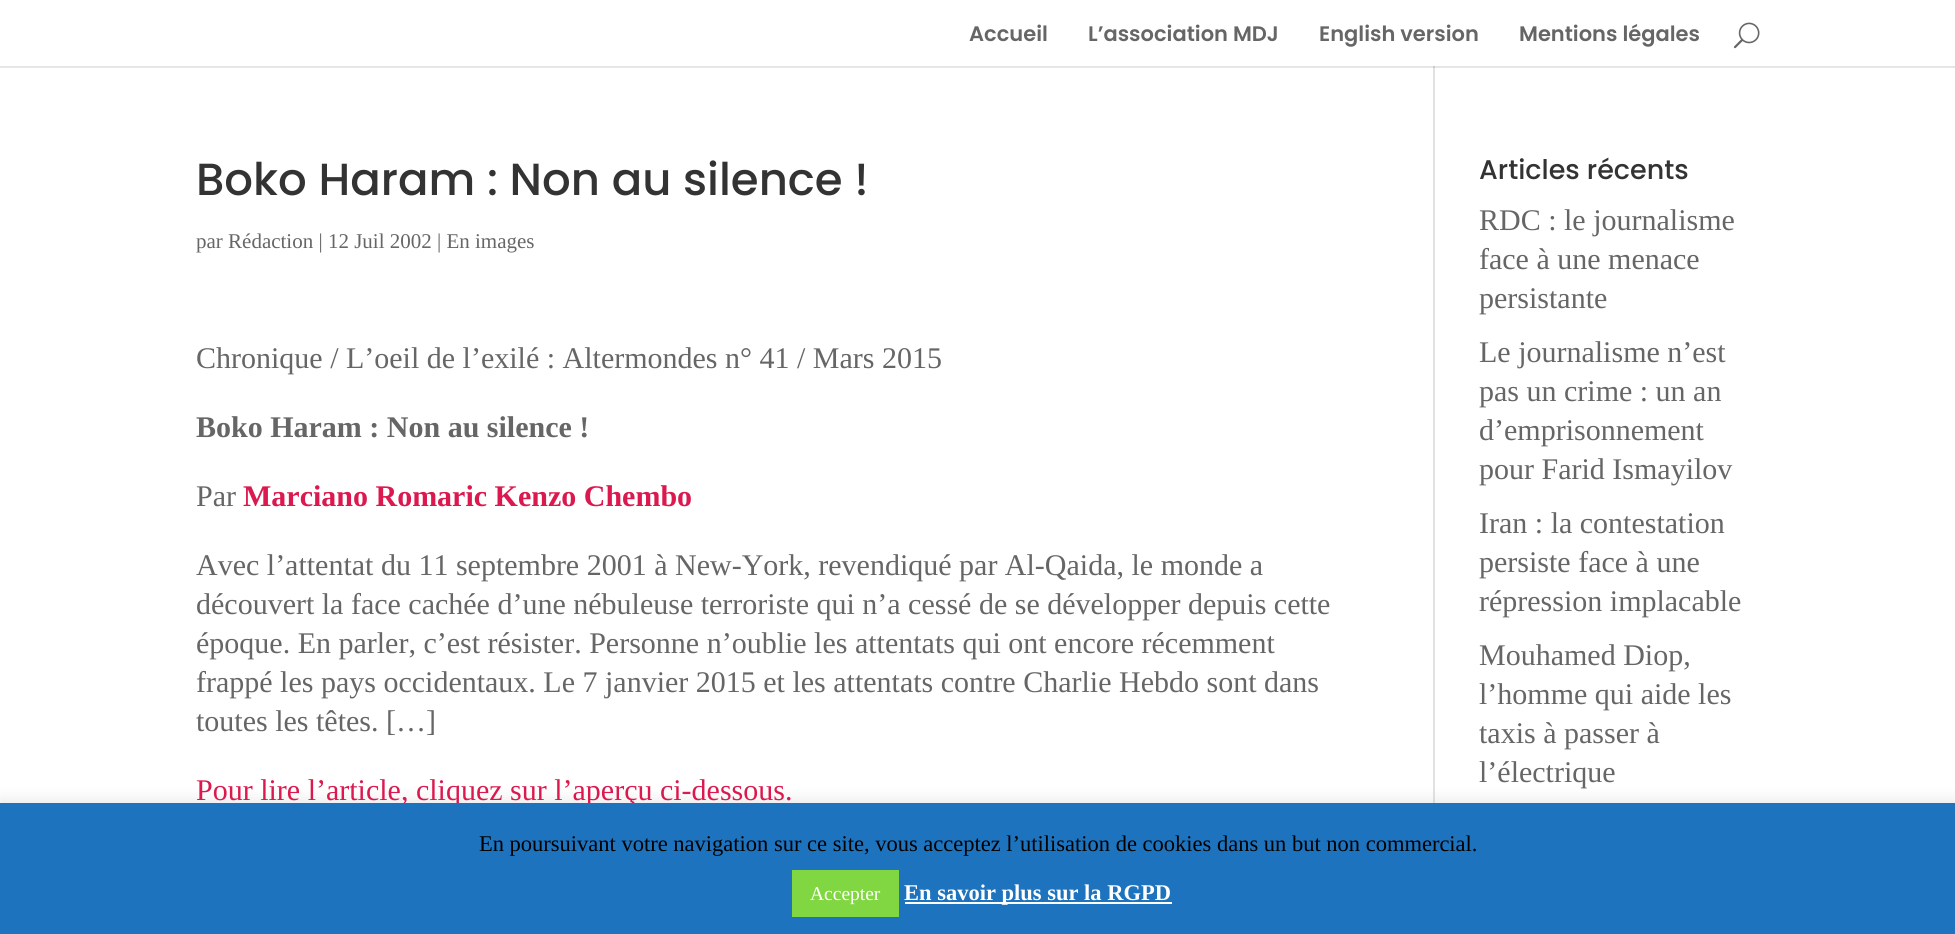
#include <cairo/cairo.h>
#include <math.h>
#include <stddef.h>

static cairo_t *cr;

static void use_color(int r, int g, int b) {
  cairo_set_source_rgb(cr, r / 255.0, g / 255.0, b / 255.0);
}

static void text(double x, double y, const char *s, const char *family, double size, int italic, int bold, int r, int g, int b) {
  cairo_select_font_face(cr, family, italic ? CAIRO_FONT_SLANT_ITALIC : CAIRO_FONT_SLANT_NORMAL,
    bold ? CAIRO_FONT_WEIGHT_BOLD : CAIRO_FONT_WEIGHT_NORMAL);
  cairo_set_font_size(cr, size);
  use_color(r, g, b);
  cairo_move_to(cr, x, y);
  cairo_show_text(cr, s);
}

static void box(double x, double y, double w, double h, int r, int g, int b) {
  use_color(r, g, b);
  cairo_rectangle(cr, x, y, w, h);
  cairo_fill(cr);
}

static void round_rect(double x, double y, double w, double h, double r) {
  cairo_new_sub_path(cr);
  cairo_arc(cr, x + w - r, y + h - r, r, 0, M_PI / 2);
  cairo_arc(cr, x + r, y + h - r, r, M_PI / 2, M_PI);
  cairo_arc(cr, x + r, y + r, r, M_PI, 1.5 * M_PI);
  cairo_arc(cr, x + w - r, y + r, r, 1.5 * M_PI, 2 * M_PI);
  cairo_close_path(cr);
}

static void shadow(double x, double y, double w, double h, double r, double blur, double alpha) {
  cairo_push_group_with_content(cr, CAIRO_CONTENT_ALPHA);
  cairo_set_operator(cr, CAIRO_OPERATOR_SOURCE);
  for (int i = 15; i >= -15 && fmin(w, h) + blur * i / 3 > 0; i -= 2) {
    double e = blur * i / 6;
    cairo_set_source_rgba(cr, 0, 0, 0, alpha * erfc((i - 1) / 8.5) / 2);
    round_rect(x - e, y - e, w + 2 * e, h + 2 * e, fmax(0, fmin(r + e + blur * .6, fmin(w, h) / 2 + e)));
    cairo_fill(cr);
  }
  cairo_pattern_t *soft = cairo_pop_group(cr);
  cairo_mask(cr, soft);
  cairo_pattern_destroy(soft);
}

static void picture(const char *path, double x, double y, double w, double h) {
  cairo_surface_t *image = cairo_image_surface_create_from_png(path);
  cairo_save(cr);
  cairo_set_source_surface(cr, image, x, y);
  cairo_rectangle(cr, x, y, w, h);
  cairo_fill(cr);
  cairo_restore(cr);
  cairo_surface_destroy(image);
}

static void draw(void) {
  use_color(255, 255, 255);
  cairo_paint(cr);
  box(0, 66, 1955, 2, 230, 230, 230);
  picture("img_01.png", 1733, 22, 27, 27);
  box(1433, 66, 2, 737, 226, 226, 226);
  box(1433, 66, 2, 2, 203, 203, 203);
  use_color(172, 171, 171);
  shadow(0, 801, 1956, 132, 0, 7.5, 0.3);
  text(969, 41, "Accueil", "Poppins SemiBold", 21, 0, 0, 102, 102, 102);
  text(1088, 41, "L’association MDJ", "Poppins SemiBold", 21, 0, 0, 102, 102, 102);
  text(1319, 41, "English version", "Poppins SemiBold", 21, 0, 0, 102, 102, 102);
  text(1519, 41, "Mentions légales", "Poppins SemiBold", 21, 0, 0, 102, 102, 102);
  text(196, 195, "Boko Haram : Non au silence !", "Poppins Medium", 45, 0, 0, 51, 51, 51);
  text(196, 248, "par Rédaction | 12 Juil 2002 | En images", "Liberation Serif", 21, 0, 0, 102, 102, 102);
  text(196, 368, "Chronique / L’oeil de l’exilé : Altermondes n° 41 / Mars 2015", "Liberation Serif", 30, 0, 0, 102, 102, 102);
  text(196, 437, "Boko Haram : Non au silence !", "Liberation Serif", 30, 0, 1, 102, 102, 102);
  text(196, 506, "Par", "Liberation Serif", 30, 0, 0, 102, 102, 102);
  text(243, 506, "Marciano Romaric Kenzo Chembo", "Liberation Serif", 30, 0, 1, 219, 25, 78);
  text(196, 575, "Avec l’attentat du 11 septembre 2001 à New-York, revendiqué par Al-Qaida, le monde a", "Liberation Serif", 30, 0, 0, 102, 102, 102);
  text(196, 614, "découvert la face cachée d’une nébuleuse terroriste qui n’a cessé de se développer depuis cette", "Liberation Serif", 30, 0, 0, 102, 102, 102);
  text(196, 653, "époque. En parler, c’est résister. Personne n’oublie les attentats qui ont encore récemment", "Liberation Serif", 30, 0, 0, 102, 102, 102);
  text(196, 692, "frappé les pays occidentaux. Le 7 janvier 2015 et les attentats contre Charlie Hebdo sont dans", "Liberation Serif", 30, 0, 0, 102, 102, 102);
  text(196, 731, "toutes les têtes. […]", "Liberation Serif", 30, 0, 0, 102, 102, 102);
  text(196, 800, "Pour lire l’article, cliquez sur l’aperçu ci-dessous.", "Liberation Serif", 30, 0, 0, 219, 25, 78);
  text(1479, 179, "Articles récents", "Poppins Medium", 27, 0, 0, 51, 51, 51);
  text(1479, 230, "RDC : le journalisme", "Liberation Serif", 30, 0, 0, 102, 102, 102);
  text(1479, 269, "face à une menace", "Liberation Serif", 30, 0, 0, 102, 102, 102);
  text(1479, 308, "persistante", "Liberation Serif", 30, 0, 0, 102, 102, 102);
  text(1479, 362, "Le journalisme n’est", "Liberation Serif", 30, 0, 0, 102, 102, 102);
  text(1479, 401, "pas un crime : un an", "Liberation Serif", 30, 0, 0, 102, 102, 102);
  text(1479, 440, "d’emprisonnement", "Liberation Serif", 30, 0, 0, 102, 102, 102);
  text(1479, 479, "pour Farid Ismayilov", "Liberation Serif", 30, 0, 0, 102, 102, 102);
  text(1479, 533, "Iran : la contestation", "Liberation Serif", 30, 0, 0, 102, 102, 102);
  text(1479, 572, "persiste face à une", "Liberation Serif", 30, 0, 0, 102, 102, 102);
  text(1479, 611, "répression implacable", "Liberation Serif", 30, 0, 0, 102, 102, 102);
  text(1479, 665, "Mouhamed Diop,", "Liberation Serif", 30, 0, 0, 102, 102, 102);
  text(1479, 704, "l’homme qui aide les", "Liberation Serif", 30, 0, 0, 102, 102, 102);
  text(1479, 743, "taxis à passer à", "Liberation Serif", 30, 0, 0, 102, 102, 102);
  text(1479, 782, "l’électrique", "Liberation Serif", 30, 0, 0, 102, 102, 102);
  box(0, 803, 1955, 131, 30, 115, 190);
  text(479, 851, "En poursuivant votre navigation sur ce site, vous acceptez l’utilisation de cookies dans un but non commercial.", "Liberation Serif", 22.5, 0, 0, 0, 0, 0);
  box(792, 870, 107, 47, 129, 215, 66);
  text(810, 900, "Accepter", "Liberation Serif", 19.5, 0, 0, 255, 255, 255);
  box(905, 902, 267, 2, 255, 255, 255);
  text(904, 900, "En savoir plus sur la RGPD", "Liberation Serif", 22.5, 0, 1, 255, 255, 255);
}

int main(void) {
  cairo_surface_t *surface = cairo_image_surface_create(CAIRO_FORMAT_RGB24, 1955, 934);
  cr = cairo_create(surface);
  cairo_font_options_t *options = cairo_font_options_create();
  cairo_font_options_set_hint_metrics(options, CAIRO_HINT_METRICS_OFF);
  cairo_font_options_set_hint_style(options, CAIRO_HINT_STYLE_NONE);
  cairo_set_font_options(cr, options);
  cairo_set_miter_limit(cr, 4);
  draw();
  cairo_surface_write_to_png(surface, "out.png");
  cairo_font_options_destroy(options);
  cairo_destroy(cr);
  cairo_surface_destroy(surface);
  return 0;
}
